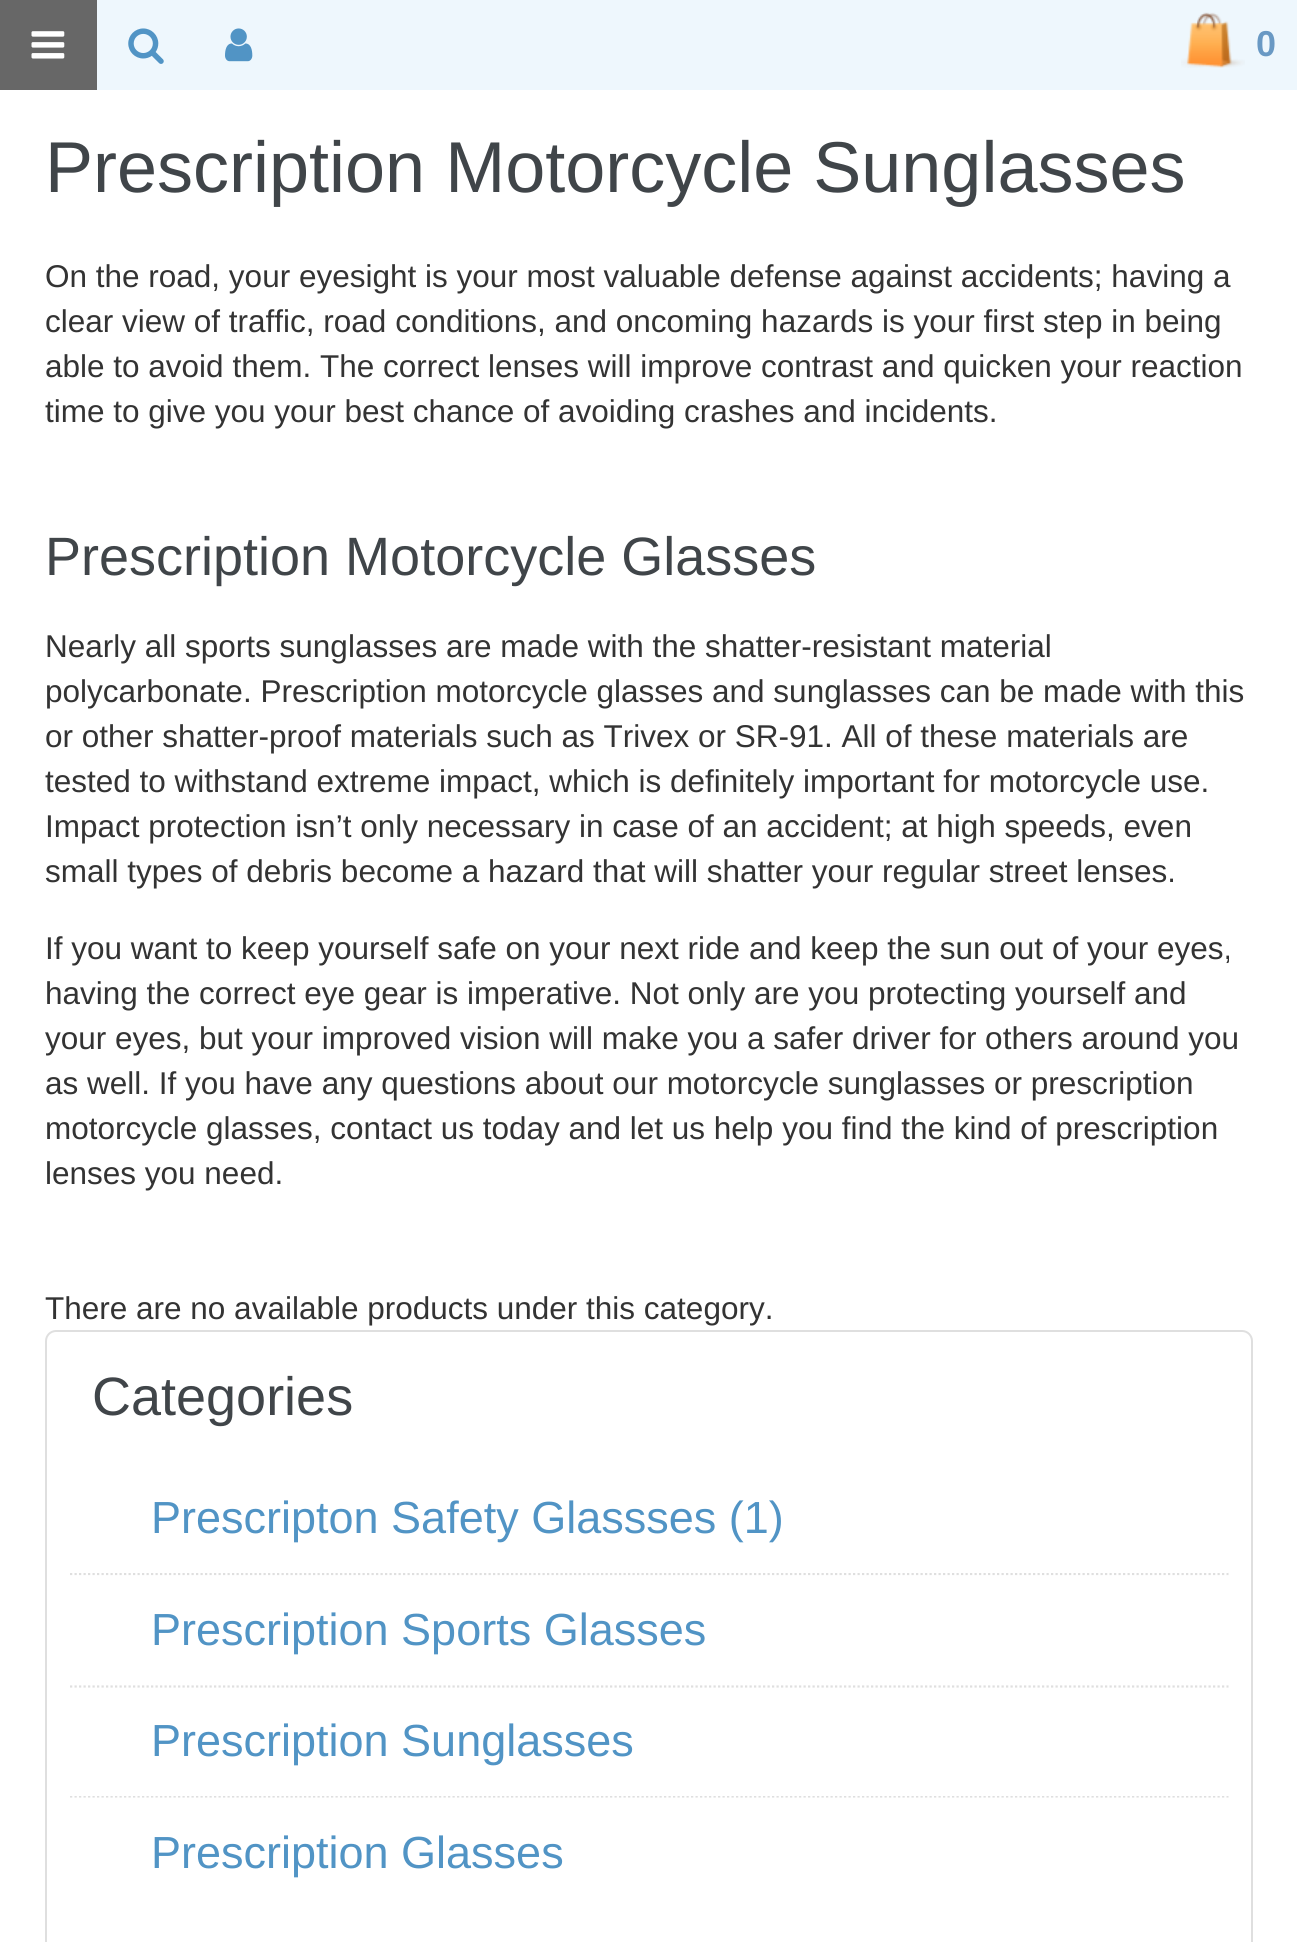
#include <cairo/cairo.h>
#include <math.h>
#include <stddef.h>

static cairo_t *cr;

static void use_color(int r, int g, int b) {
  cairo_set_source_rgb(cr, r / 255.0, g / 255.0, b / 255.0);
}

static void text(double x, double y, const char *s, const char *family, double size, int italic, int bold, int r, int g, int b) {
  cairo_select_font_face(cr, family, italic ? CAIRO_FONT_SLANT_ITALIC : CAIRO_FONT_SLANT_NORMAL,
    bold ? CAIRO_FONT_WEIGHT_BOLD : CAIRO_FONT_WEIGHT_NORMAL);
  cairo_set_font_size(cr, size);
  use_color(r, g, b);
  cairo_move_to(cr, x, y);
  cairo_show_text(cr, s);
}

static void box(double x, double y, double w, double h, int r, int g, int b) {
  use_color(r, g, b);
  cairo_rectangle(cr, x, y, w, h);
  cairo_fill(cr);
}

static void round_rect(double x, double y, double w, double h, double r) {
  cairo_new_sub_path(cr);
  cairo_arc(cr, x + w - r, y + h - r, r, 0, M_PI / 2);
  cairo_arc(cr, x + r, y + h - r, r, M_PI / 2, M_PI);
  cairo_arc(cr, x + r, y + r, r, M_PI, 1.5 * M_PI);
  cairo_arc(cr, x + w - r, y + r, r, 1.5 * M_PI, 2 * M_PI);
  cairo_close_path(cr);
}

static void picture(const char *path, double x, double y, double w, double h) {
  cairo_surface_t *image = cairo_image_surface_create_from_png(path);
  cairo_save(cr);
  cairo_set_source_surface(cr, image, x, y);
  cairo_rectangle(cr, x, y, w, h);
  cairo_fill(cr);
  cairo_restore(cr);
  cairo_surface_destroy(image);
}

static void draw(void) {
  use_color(255, 255, 255);
  cairo_paint(cr);
  box(97, 0, 1200, 90, 238, 247, 253);
  box(0, 0, 97, 90, 103, 103, 103);
  picture("img_01.png", 31, 31, 34, 28);
  picture("img_02.png", 128, 28, 36, 36);
  picture("img_03.png", 225, 28, 28, 34);
  picture("img_04.png", 1181, 12, 64, 56);
  round_rect(46, 1331, 1206, 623, 10);
  use_color(223, 223, 223);
  cairo_stroke(cr);
  cairo_new_path(cr);
  cairo_move_to(cr, 70, 1574);
  cairo_line_to(cr, 1228.5, 1574);
  cairo_set_line_width(cr, 2.2);
  cairo_set_dash(cr, (double[]){2.25, 2.25}, 2, 0);
  cairo_stroke(cr);
  box(70, 1572, 1158, 1, 255, 255, 255);
  cairo_new_path(cr);
  cairo_move_to(cr, 70, 1796.5);
  cairo_line_to(cr, 1228.5, 1796.5);
  use_color(223, 223, 223);
  cairo_stroke(cr);
  box(70, 1795, 1159, 1, 255, 255, 255);
  cairo_new_path(cr);
  cairo_move_to(cr, 70, 1686.5);
  cairo_line_to(cr, 1228.5, 1686.5);
  use_color(223, 223, 223);
  cairo_stroke(cr);
  text(1256, 56, "0", "Liberation Sans", 36, 0, 1, 105, 153, 196);
  text(45, 192, "Prescription Motorcycle Sunglasses", "Liberation Sans", 72, 0, 0, 64, 69, 73);
  text(45, 287, "On the road, your eyesight is your most valuable defense against accidents; having a", "Liberation Sans", 31.5, 0, 0, 51, 51, 51);
  text(45, 332, "clear view of traffic, road conditions, and oncoming hazards is your first step in being", "Liberation Sans", 31.5, 0, 0, 51, 51, 51);
  text(45, 377, "able to avoid them. The correct lenses will improve contrast and quicken your reaction", "Liberation Sans", 31.5, 0, 0, 51, 51, 51);
  text(45, 422, "time to give you your best chance of avoiding crashes and incidents.", "Liberation Sans", 31.5, 0, 0, 51, 51, 51);
  text(45, 575, "Prescription Motorcycle Glasses", "Liberation Sans", 54, 0, 0, 64, 69, 73);
  text(45, 657, "Nearly all sports sunglasses are made with the shatter-resistant material", "Liberation Sans", 31.5, 0, 0, 51, 51, 51);
  text(45, 702, "polycarbonate. Prescription motorcycle glasses and sunglasses can be made with this", "Liberation Sans", 31.5, 0, 0, 51, 51, 51);
  text(45, 747, "or other shatter-proof materials such as Trivex or SR-91. All of these materials are", "Liberation Sans", 31.5, 0, 0, 51, 51, 51);
  text(45, 792, "tested to withstand extreme impact, which is definitely important for motorcycle use.", "Liberation Sans", 31.5, 0, 0, 51, 51, 51);
  text(45, 837, "Impact protection isn’t only necessary in case of an accident; at high speeds, even", "Liberation Sans", 31.5, 0, 0, 51, 51, 51);
  text(45, 882, "small types of debris become a hazard that will shatter your regular street lenses.", "Liberation Sans", 31.5, 0, 0, 51, 51, 51);
  text(45, 959, "If you want to keep yourself safe on your next ride and keep the sun out of your eyes,", "Liberation Sans", 31.5, 0, 0, 51, 51, 51);
  text(45, 1004, "having the correct eye gear is imperative. Not only are you protecting yourself and", "Liberation Sans", 31.5, 0, 0, 51, 51, 51);
  text(45, 1049, "your eyes, but your improved vision will make you a safer driver for others around you", "Liberation Sans", 31.5, 0, 0, 51, 51, 51);
  text(45, 1094, "as well. If you have any questions about our motorcycle sunglasses or prescription", "Liberation Sans", 31.5, 0, 0, 51, 51, 51);
  text(45, 1139, "motorcycle glasses, contact us today and let us help you find the kind of prescription", "Liberation Sans", 31.5, 0, 0, 51, 51, 51);
  text(45, 1184, "lenses you need.", "Liberation Sans", 31.5, 0, 0, 51, 51, 51);
  text(45, 1319, "There are no available products under this category.", "Liberation Sans", 31.5, 0, 0, 51, 51, 51);
  text(92, 1415, "Categories", "Liberation Sans", 54, 0, 0, 64, 69, 73);
  text(151, 1533, "Prescripton Safety Glassses (1)", "Liberation Sans", 45, 0, 0, 81, 148, 197);
  text(151, 1645, "Prescription Sports Glasses", "Liberation Sans", 45, 0, 0, 81, 148, 197);
  text(151, 1756, "Prescription Sunglasses", "Liberation Sans", 45, 0, 0, 81, 148, 197);
  text(151, 1868, "Prescription Glasses", "Liberation Sans", 45, 0, 0, 81, 148, 197);
}

int main(void) {
  cairo_surface_t *surface = cairo_image_surface_create(CAIRO_FORMAT_RGB24, 1297, 1942);
  cr = cairo_create(surface);
  cairo_font_options_t *options = cairo_font_options_create();
  cairo_font_options_set_hint_metrics(options, CAIRO_HINT_METRICS_OFF);
  cairo_font_options_set_hint_style(options, CAIRO_HINT_STYLE_NONE);
  cairo_set_font_options(cr, options);
  cairo_set_miter_limit(cr, 4);
  draw();
  cairo_surface_write_to_png(surface, "out.png");
  cairo_font_options_destroy(options);
  cairo_destroy(cr);
  cairo_surface_destroy(surface);
  return 0;
}
